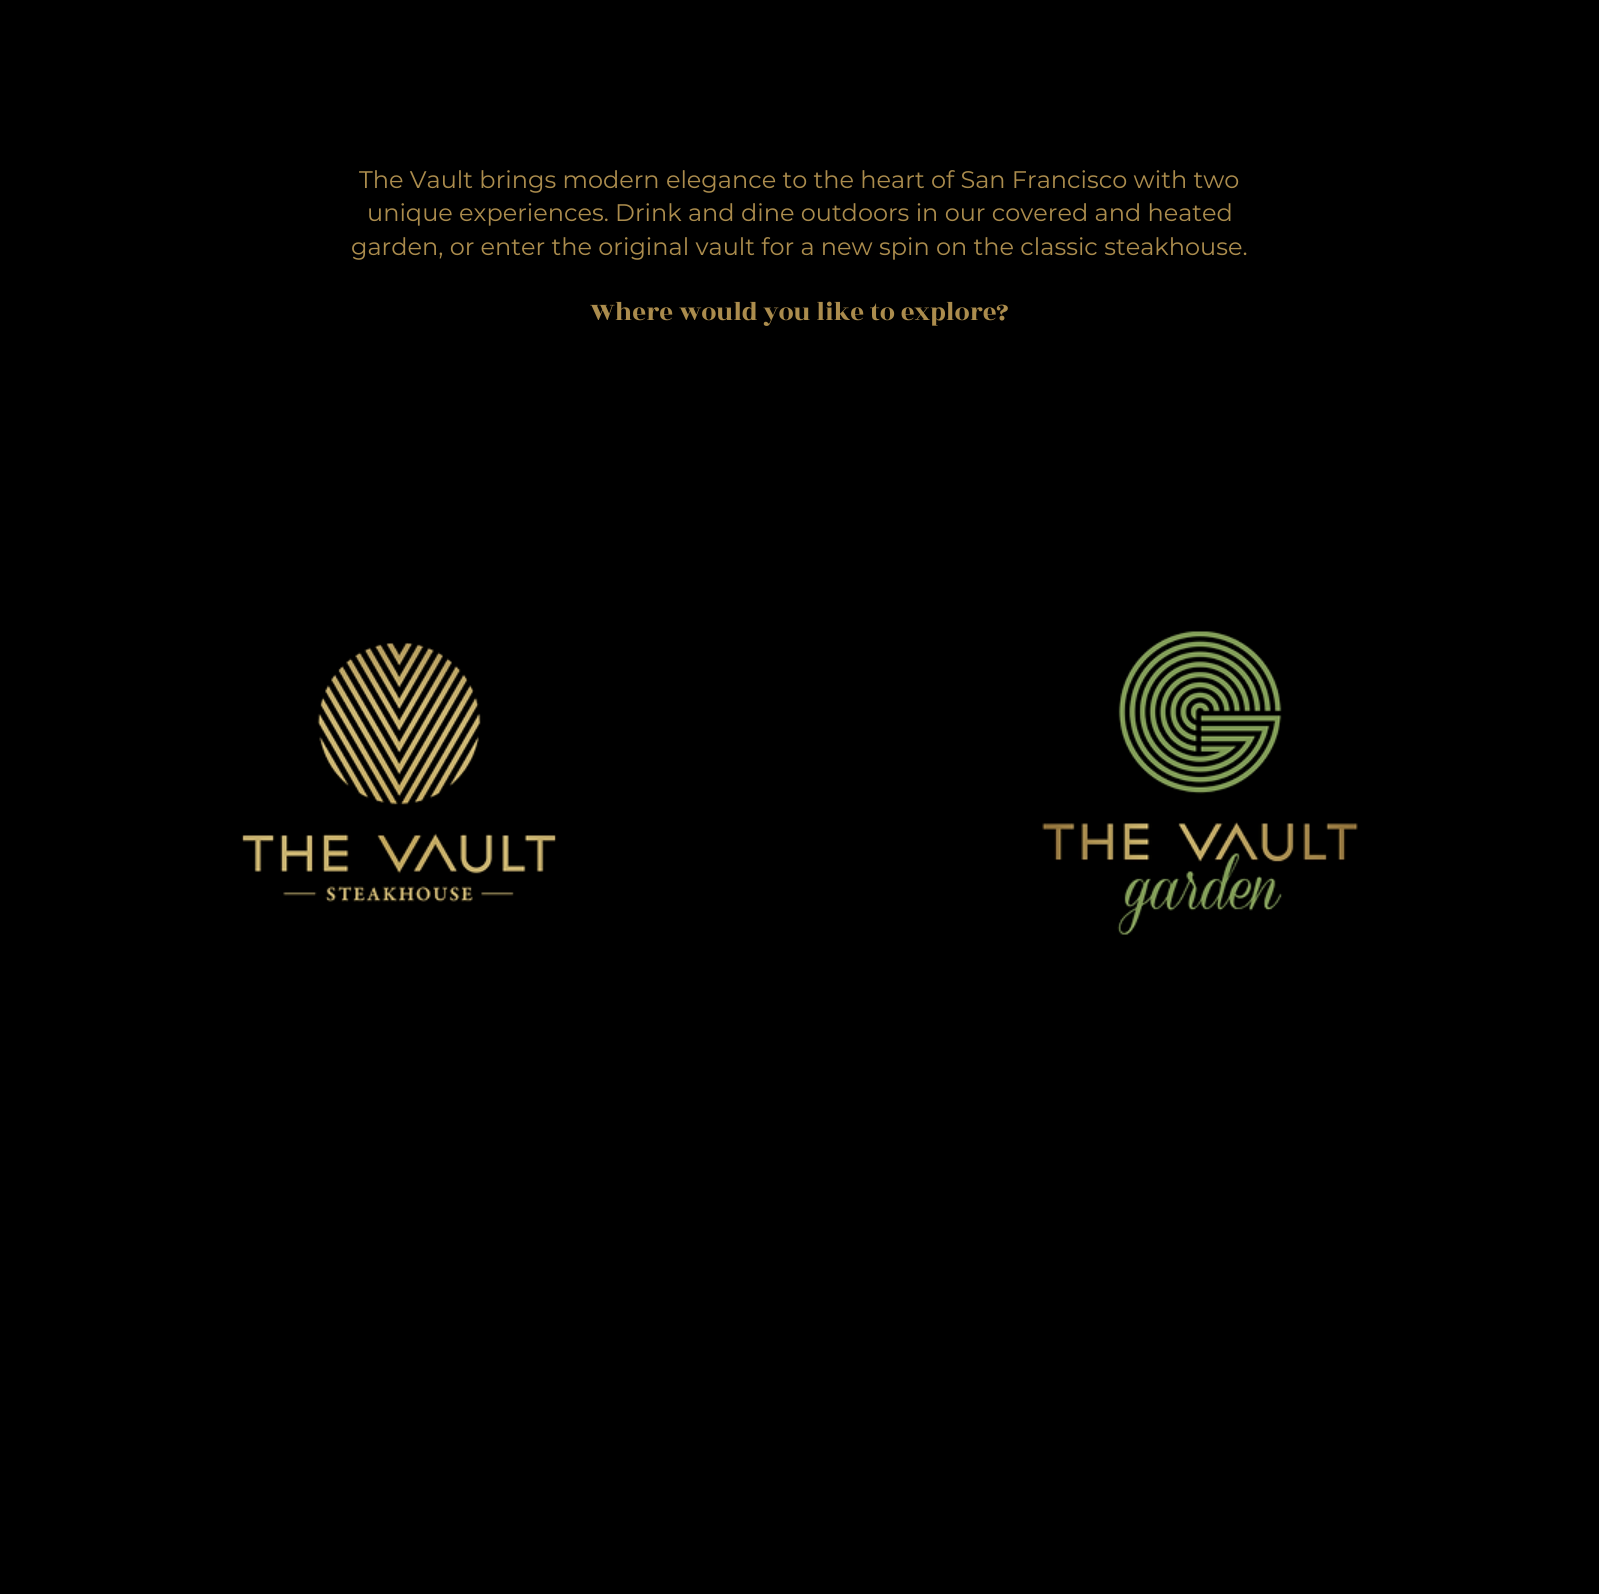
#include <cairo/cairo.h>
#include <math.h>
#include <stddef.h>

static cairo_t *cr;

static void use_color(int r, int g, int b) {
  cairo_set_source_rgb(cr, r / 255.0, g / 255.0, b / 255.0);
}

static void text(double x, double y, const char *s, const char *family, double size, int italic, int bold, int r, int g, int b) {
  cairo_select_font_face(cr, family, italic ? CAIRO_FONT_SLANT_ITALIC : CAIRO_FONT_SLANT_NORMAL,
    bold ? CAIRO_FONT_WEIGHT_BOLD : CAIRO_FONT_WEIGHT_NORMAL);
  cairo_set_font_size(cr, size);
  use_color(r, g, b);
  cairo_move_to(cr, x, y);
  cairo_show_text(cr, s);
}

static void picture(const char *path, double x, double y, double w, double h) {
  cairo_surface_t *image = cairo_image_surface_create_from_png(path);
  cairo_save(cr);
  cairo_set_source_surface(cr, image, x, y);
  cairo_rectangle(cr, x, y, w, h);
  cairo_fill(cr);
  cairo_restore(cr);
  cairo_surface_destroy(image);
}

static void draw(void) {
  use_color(0, 0, 0);
  cairo_paint(cr);
  picture("img_01.png", 241, 642, 316, 260);
  picture("img_02.png", 1042, 631, 316, 304);
  text(359, 188, "The Vault brings modern elegance to the heart of San Francisco with two", "Montserrat", 24, 0, 0, 171, 140, 77);
  text(367, 221, "unique experiences. Drink and dine outdoors in our covered and heated", "Montserrat", 24, 0, 0, 171, 140, 77);
  text(351, 255, "garden, or enter the original vault for a new spin on the classic steakhouse.", "Montserrat", 24, 0, 0, 171, 140, 77);
  text(590, 320, "Where would you like to explore?", "Rozha One", 27, 0, 0, 171, 140, 77);
}

int main(void) {
  cairo_surface_t *surface = cairo_image_surface_create(CAIRO_FORMAT_RGB24, 1599, 1594);
  cr = cairo_create(surface);
  cairo_font_options_t *options = cairo_font_options_create();
  cairo_font_options_set_hint_metrics(options, CAIRO_HINT_METRICS_OFF);
  cairo_font_options_set_hint_style(options, CAIRO_HINT_STYLE_NONE);
  cairo_set_font_options(cr, options);
  cairo_set_miter_limit(cr, 4);
  draw();
  cairo_surface_write_to_png(surface, "out.png");
  cairo_font_options_destroy(options);
  cairo_destroy(cr);
  cairo_surface_destroy(surface);
  return 0;
}
